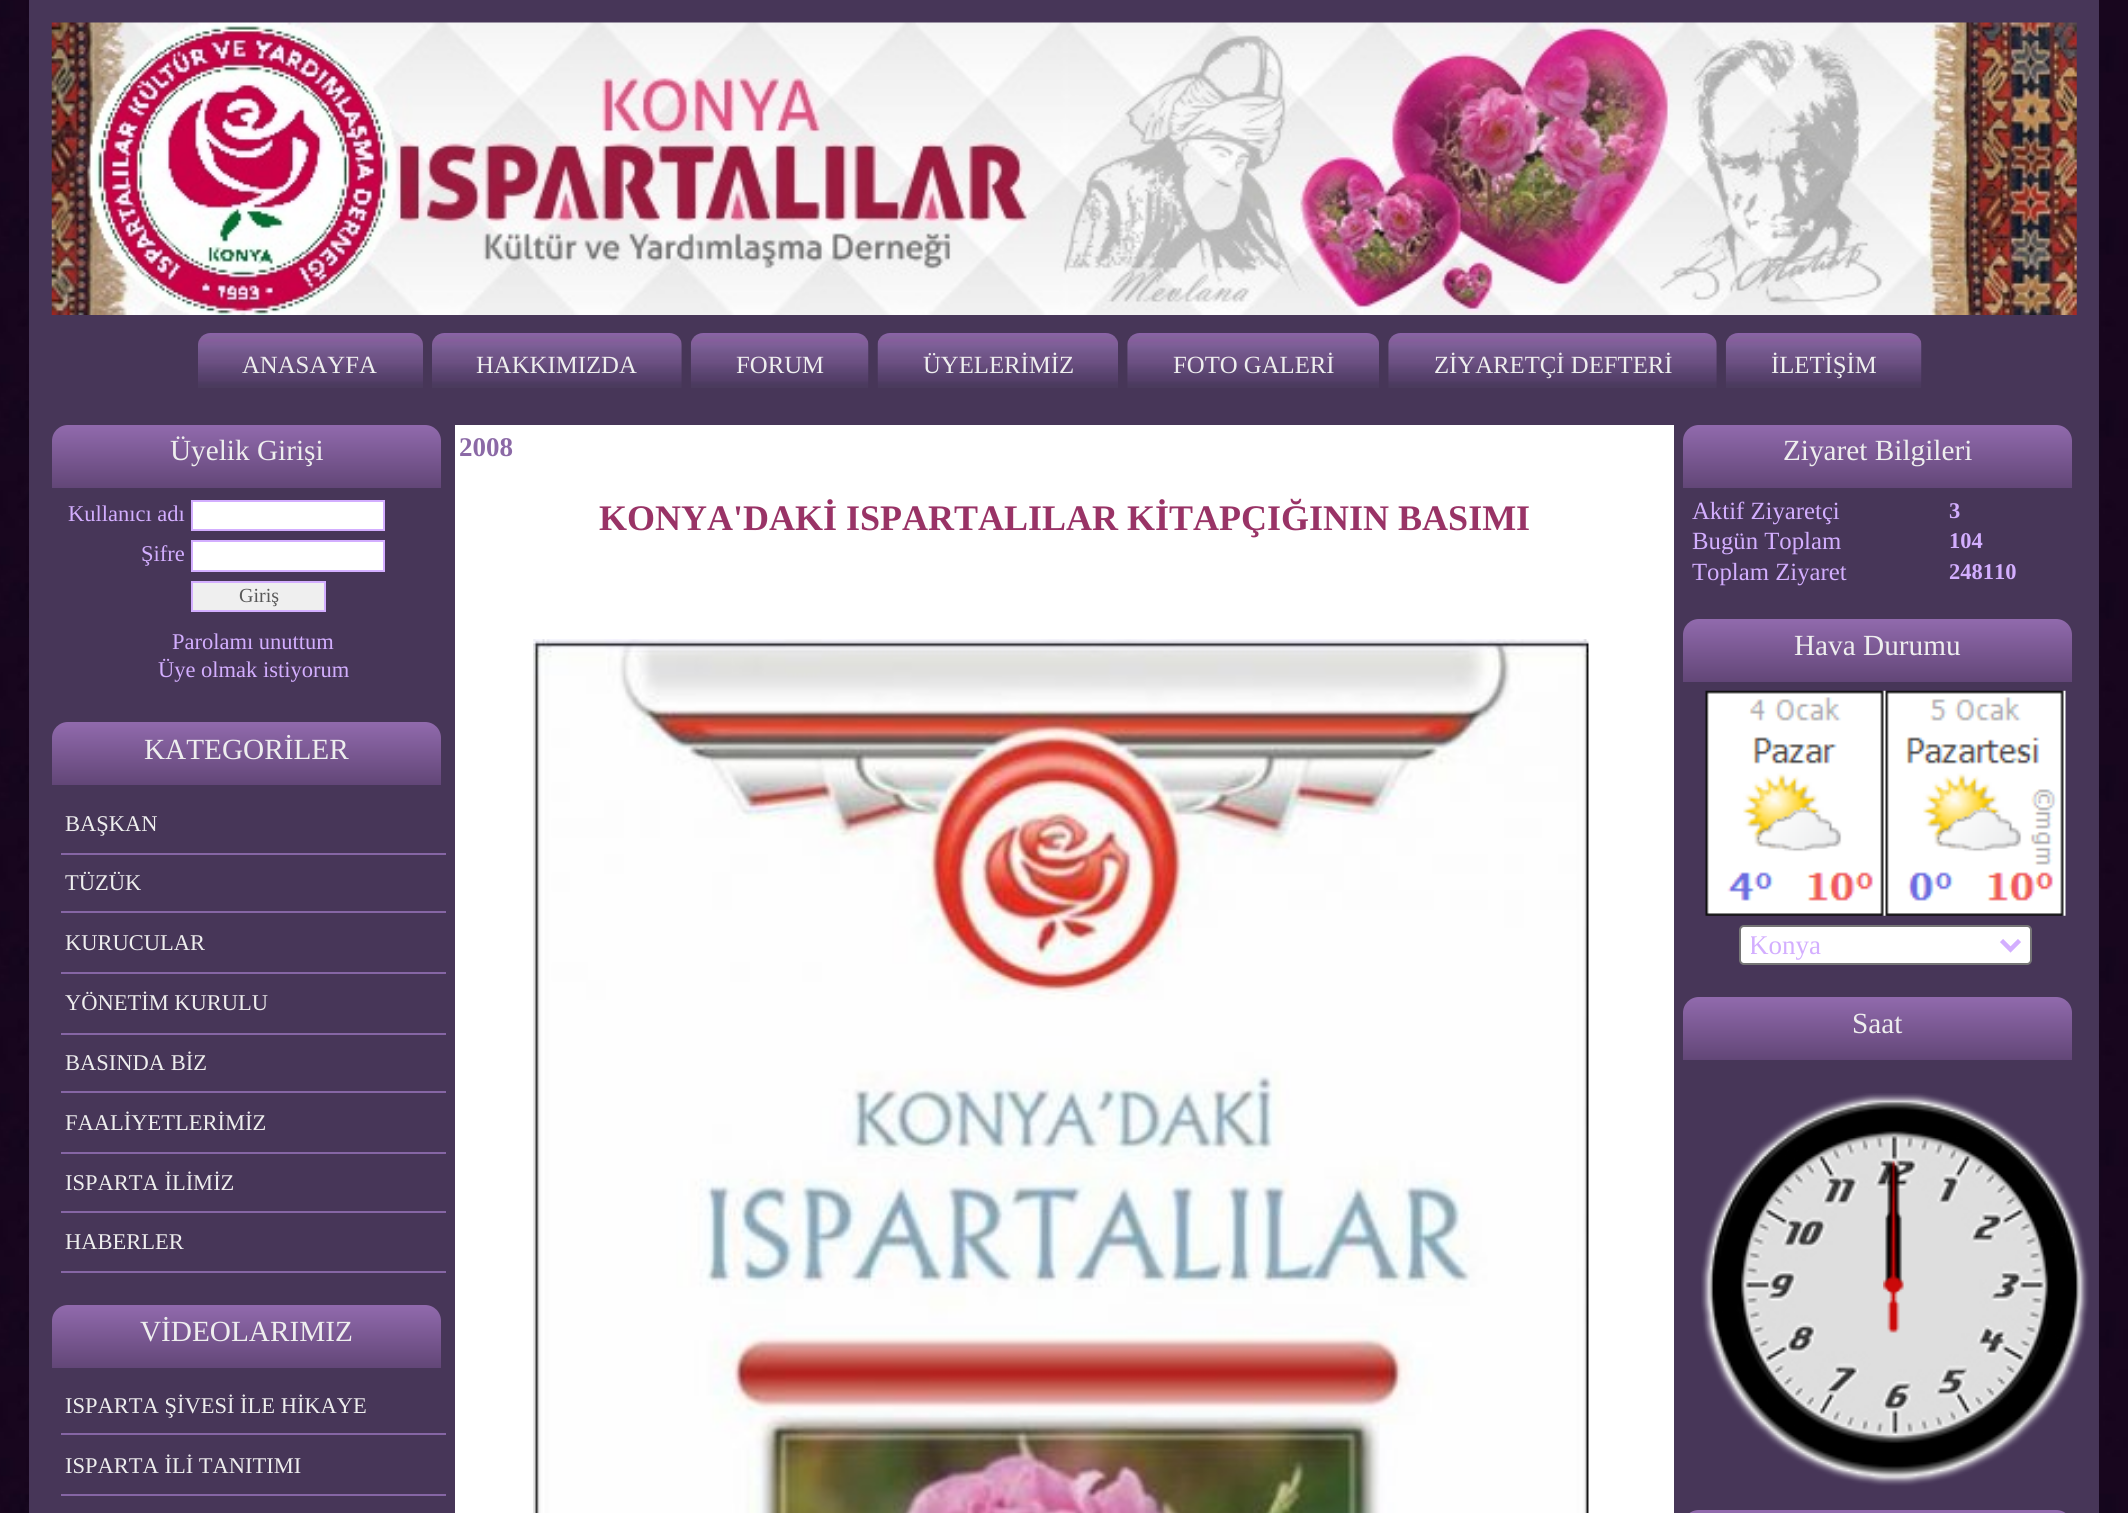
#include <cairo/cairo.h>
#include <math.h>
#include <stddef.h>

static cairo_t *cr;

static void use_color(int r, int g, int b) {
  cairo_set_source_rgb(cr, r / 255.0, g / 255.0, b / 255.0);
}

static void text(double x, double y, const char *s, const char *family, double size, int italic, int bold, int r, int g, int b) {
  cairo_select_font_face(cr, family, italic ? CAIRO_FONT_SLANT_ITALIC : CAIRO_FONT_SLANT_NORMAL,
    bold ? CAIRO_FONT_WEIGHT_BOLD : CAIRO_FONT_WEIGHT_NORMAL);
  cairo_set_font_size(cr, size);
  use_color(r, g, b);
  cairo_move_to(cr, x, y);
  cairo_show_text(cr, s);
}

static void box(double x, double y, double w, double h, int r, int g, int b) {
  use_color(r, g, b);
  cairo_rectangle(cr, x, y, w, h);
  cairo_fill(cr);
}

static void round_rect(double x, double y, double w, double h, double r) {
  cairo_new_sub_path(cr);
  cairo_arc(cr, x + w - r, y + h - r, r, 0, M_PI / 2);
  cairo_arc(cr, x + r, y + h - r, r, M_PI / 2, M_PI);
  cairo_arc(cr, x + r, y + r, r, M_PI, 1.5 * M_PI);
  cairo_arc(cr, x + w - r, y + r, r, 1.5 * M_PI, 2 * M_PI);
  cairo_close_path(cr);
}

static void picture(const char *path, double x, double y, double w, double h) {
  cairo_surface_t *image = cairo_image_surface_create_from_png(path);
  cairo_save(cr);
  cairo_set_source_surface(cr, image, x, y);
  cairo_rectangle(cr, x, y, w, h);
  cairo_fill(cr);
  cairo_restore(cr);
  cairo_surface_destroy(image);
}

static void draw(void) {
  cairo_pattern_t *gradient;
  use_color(255, 255, 255);
  cairo_paint(cr);
  picture("img_01.png", 0, 0, 2128, 1513);
  box(29, 0, 2070, 1513, 71, 54, 88);
  picture("img_02.png", 51, 22, 2026, 293);
  picture("img_03.png", 198, 333, 225, 55);
  picture("img_04.png", 432, 333, 250, 55);
  picture("img_05.png", 690, 333, 179, 55);
  picture("img_06.png", 877, 333, 241, 55);
  picture("img_07.png", 1127, 333, 252, 55);
  picture("img_08.png", 1388, 333, 329, 55);
  picture("img_09.png", 1725, 333, 197, 55);
  gradient = cairo_pattern_create_linear(246, 425, 246, 488);
  cairo_pattern_add_color_stop_rgba(gradient, 0, 0.569, 0.416, 0.678, 1);
  cairo_pattern_add_color_stop_rgba(gradient, 1, 0.384, 0.275, 0.467, 1);
  cairo_set_source(cr, gradient);
  cairo_pattern_destroy(gradient);
  cairo_new_path(cr);
  cairo_move_to(cr, 68, 425);
  cairo_line_to(cr, 425, 425);
  cairo_curve_to(cr, 434, 425, 441, 432, 441, 441);
  cairo_line_to(cr, 441, 488);
  cairo_line_to(cr, 52, 488);
  cairo_line_to(cr, 52, 441);
  cairo_curve_to(cr, 52, 432, 59, 425, 68, 425);
  cairo_close_path(cr);
  cairo_fill(cr);
  use_color(255, 255, 255);
  cairo_rectangle(cr, 192, 501, 192, 29);
  cairo_fill_preserve(cr);
  use_color(211, 174, 255);
  cairo_stroke(cr);
  use_color(255, 255, 255);
  cairo_rectangle(cr, 192, 541, 192, 30);
  cairo_fill_preserve(cr);
  use_color(211, 174, 255);
  cairo_stroke(cr);
  use_color(239, 239, 239);
  cairo_rectangle(cr, 192, 582, 133, 29);
  cairo_fill_preserve(cr);
  use_color(211, 174, 255);
  cairo_stroke(cr);
  gradient = cairo_pattern_create_linear(246, 722, 246, 785);
  cairo_pattern_add_color_stop_rgba(gradient, 0, 0.569, 0.416, 0.678, 1);
  cairo_pattern_add_color_stop_rgba(gradient, 1, 0.384, 0.275, 0.467, 1);
  cairo_set_source(cr, gradient);
  cairo_pattern_destroy(gradient);
  cairo_new_path(cr);
  cairo_move_to(cr, 68, 722);
  cairo_line_to(cr, 425, 722);
  cairo_curve_to(cr, 434, 722, 441, 729, 441, 738);
  cairo_line_to(cr, 441, 785);
  cairo_line_to(cr, 52, 785);
  cairo_line_to(cr, 52, 738);
  cairo_curve_to(cr, 52, 729, 59, 722, 68, 722);
  cairo_close_path(cr);
  cairo_fill(cr);
  box(61, 853, 385, 2, 134, 102, 165);
  box(61, 911, 385, 2, 134, 102, 165);
  box(61, 972, 385, 2, 134, 102, 165);
  box(61, 1033, 385, 2, 134, 102, 165);
  box(61, 1091, 385, 2, 134, 102, 165);
  box(61, 1152, 385, 2, 134, 102, 165);
  box(61, 1211, 385, 2, 134, 102, 165);
  box(61, 1271, 385, 2, 134, 102, 165);
  gradient = cairo_pattern_create_linear(246, 1305, 246, 1368);
  cairo_pattern_add_color_stop_rgba(gradient, 0, 0.569, 0.416, 0.678, 1);
  cairo_pattern_add_color_stop_rgba(gradient, 1, 0.384, 0.275, 0.467, 1);
  cairo_set_source(cr, gradient);
  cairo_pattern_destroy(gradient);
  cairo_new_path(cr);
  cairo_move_to(cr, 68, 1305);
  cairo_line_to(cr, 425, 1305);
  cairo_curve_to(cr, 434, 1305, 441, 1312, 441, 1321);
  cairo_line_to(cr, 441, 1368);
  cairo_line_to(cr, 52, 1368);
  cairo_line_to(cr, 52, 1321);
  cairo_curve_to(cr, 52, 1312, 59, 1305, 68, 1305);
  cairo_close_path(cr);
  cairo_fill(cr);
  box(61, 1433, 385, 2, 134, 102, 165);
  box(61, 1494, 385, 2, 134, 102, 165);
  box(455, 425, 1219, 1088, 255, 255, 255);
  picture("img_10.png", 533, 639, 1056, 874);
  gradient = cairo_pattern_create_linear(1878, 425, 1878, 488);
  cairo_pattern_add_color_stop_rgba(gradient, 0, 0.569, 0.416, 0.678, 1);
  cairo_pattern_add_color_stop_rgba(gradient, 1, 0.384, 0.275, 0.467, 1);
  cairo_set_source(cr, gradient);
  cairo_pattern_destroy(gradient);
  cairo_new_path(cr);
  cairo_move_to(cr, 1699, 425);
  cairo_line_to(cr, 2056, 425);
  cairo_curve_to(cr, 2065, 425, 2072, 432, 2072, 441);
  cairo_line_to(cr, 2072, 488);
  cairo_line_to(cr, 1683, 488);
  cairo_line_to(cr, 1683, 441);
  cairo_curve_to(cr, 1683, 432, 1690, 425, 1699, 425);
  cairo_close_path(cr);
  cairo_fill(cr);
  gradient = cairo_pattern_create_linear(1878, 619, 1878, 682);
  cairo_pattern_add_color_stop_rgba(gradient, 0, 0.569, 0.416, 0.678, 1);
  cairo_pattern_add_color_stop_rgba(gradient, 1, 0.384, 0.275, 0.467, 1);
  cairo_set_source(cr, gradient);
  cairo_pattern_destroy(gradient);
  cairo_new_path(cr);
  cairo_move_to(cr, 1699, 619);
  cairo_line_to(cr, 2056, 619);
  cairo_curve_to(cr, 2065, 619, 2072, 626, 2072, 635);
  cairo_line_to(cr, 2072, 682);
  cairo_line_to(cr, 1683, 682);
  cairo_line_to(cr, 1683, 635);
  cairo_curve_to(cr, 1683, 626, 1690, 619, 1699, 619);
  cairo_close_path(cr);
  cairo_fill(cr);
  picture("img_11.png", 1705, 690, 361, 226);
  use_color(255, 255, 255);
  round_rect(1740, 926, 291, 38, 4);
  cairo_fill_preserve(cr);
  use_color(118, 118, 118);
  cairo_stroke(cr);
  cairo_new_path(cr);
  cairo_move_to(cr, 2001.5, 940.5);
  cairo_line_to(cr, 2010.5, 949.5);
  cairo_line_to(cr, 2019.5, 940.5);
  use_color(211, 174, 255);
  cairo_set_line_width(cr, 4.5);
  cairo_stroke(cr);
  gradient = cairo_pattern_create_linear(1878, 997, 1878, 1060);
  cairo_pattern_add_color_stop_rgba(gradient, 0, 0.569, 0.416, 0.678, 1);
  cairo_pattern_add_color_stop_rgba(gradient, 1, 0.384, 0.275, 0.467, 1);
  cairo_set_source(cr, gradient);
  cairo_pattern_destroy(gradient);
  cairo_new_path(cr);
  cairo_move_to(cr, 1699, 997);
  cairo_line_to(cr, 2056, 997);
  cairo_curve_to(cr, 2065, 997, 2072, 1004, 2072, 1013);
  cairo_line_to(cr, 2072, 1060);
  cairo_line_to(cr, 1683, 1060);
  cairo_line_to(cr, 1683, 1013);
  cairo_curve_to(cr, 1683, 1004, 1690, 997, 1699, 997);
  cairo_close_path(cr);
  cairo_fill(cr);
  picture("img_12.png", 1701, 1093, 388, 393);
  picture("img_15.png", 1885, 1210, 17, 83);
  picture("img_14.png", 1887, 1162, 13, 128);
  picture("img_13.png", 1883, 1160, 21, 173);
  gradient = cairo_pattern_create_linear(1878, 1510, 1878, 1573);
  cairo_pattern_add_color_stop_rgba(gradient, 0, 0.569, 0.416, 0.678, 1);
  cairo_pattern_add_color_stop_rgba(gradient, 1, 0.384, 0.275, 0.467, 1);
  cairo_set_source(cr, gradient);
  cairo_pattern_destroy(gradient);
  cairo_new_path(cr);
  cairo_move_to(cr, 1699, 1510);
  cairo_line_to(cr, 2056, 1510);
  cairo_curve_to(cr, 2065, 1510, 2072, 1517, 2072, 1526);
  cairo_line_to(cr, 2072, 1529);
  cairo_line_to(cr, 1683, 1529);
  cairo_line_to(cr, 1683, 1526);
  cairo_curve_to(cr, 1683, 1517, 1690, 1510, 1699, 1510);
  cairo_close_path(cr);
  cairo_fill(cr);
  text(242, 373, "ANASAYFA", "Liberation Serif", 24.75, 0, 0, 238, 238, 238);
  text(476, 373, "HAKKIMIZDA", "Liberation Serif", 24.75, 0, 0, 238, 238, 238);
  text(736, 373, "FORUM", "Liberation Serif", 24.75, 0, 0, 238, 238, 238);
  text(923, 373, "ÜYELERİMİZ", "Liberation Serif", 24.75, 0, 0, 238, 238, 238);
  text(1173, 373, "FOTO GALERİ", "Liberation Serif", 24.75, 0, 0, 238, 238, 238);
  text(1434, 373, "ZİYARETÇİ DEFTERİ", "Liberation Serif", 24.75, 0, 0, 238, 238, 238);
  text(1771, 373, "İLETİŞİM", "Liberation Serif", 24.75, 0, 0, 238, 238, 238);
  text(170, 460, "Üyelik Girişi", "Liberation Serif", 29.25, 0, 0, 238, 238, 238);
  text(68, 521, "Kullanıcı adı", "Liberation Serif", 22.5, 0, 0, 211, 174, 255);
  text(141, 561, "Şifre", "Liberation Serif", 22.5, 0, 0, 211, 174, 255);
  text(239, 602, "Giriş", "Liberation Serif", 20, 0, 0, 88, 88, 88);
  text(172, 649, "Parolamı unuttum", "Liberation Serif", 22.5, 0, 0, 211, 174, 255);
  text(158, 677, "Üye olmak istiyorum", "Liberation Serif", 22.5, 0, 0, 211, 174, 255);
  text(144, 759, "KATEGORİLER", "Liberation Serif", 29.25, 0, 0, 238, 238, 238);
  text(65, 831, "BAŞKAN", "Liberation Serif", 22.5, 0, 0, 238, 238, 238);
  text(65, 890, "TÜZÜK", "Liberation Serif", 22.5, 0, 0, 238, 238, 238);
  text(65, 950, "KURUCULAR", "Liberation Serif", 22.5, 0, 0, 238, 238, 238);
  text(65, 1010, "YÖNETİM KURULU", "Liberation Serif", 22.5, 0, 0, 238, 238, 238);
  text(65, 1070, "BASINDA BİZ", "Liberation Serif", 22.5, 0, 0, 238, 238, 238);
  text(65, 1130, "FAALİYETLERİMİZ", "Liberation Serif", 22.5, 0, 0, 238, 238, 238);
  text(65, 1190, "ISPARTA İLİMİZ", "Liberation Serif", 22.5, 0, 0, 238, 238, 238);
  text(65, 1249, "HABERLER", "Liberation Serif", 22.5, 0, 0, 238, 238, 238);
  text(140, 1341, "VİDEOLARIMIZ", "Liberation Serif", 29.25, 0, 0, 238, 238, 238);
  text(65, 1413, "ISPARTA ŞİVESİ İLE HİKAYE", "Liberation Serif", 22.5, 0, 0, 238, 238, 238);
  text(65, 1473, "ISPARTA İLİ TANITIMI", "Liberation Serif", 22.5, 0, 0, 238, 238, 238);
  text(459, 456, "2008", "Liberation Serif", 27, 0, 1, 139, 105, 166);
  text(599, 530, "KONYA'DAKİ ISPARTALILAR KİTAPÇIĞININ BASIMI", "Liberation Serif", 36, 0, 1, 153, 51, 102);
  text(1783, 460, "Ziyaret Bilgileri", "Liberation Serif", 29.25, 0, 0, 238, 238, 238);
  text(1692, 519, "Aktif Ziyaretçi", "Liberation Serif", 24.75, 0, 0, 211, 174, 255);
  text(1949, 518, "3", "Liberation Serif", 22.5, 0, 1, 211, 174, 255);
  text(1692, 549, "Bugün Toplam", "Liberation Serif", 24.75, 0, 0, 211, 174, 255);
  text(1949, 548, "104", "Liberation Serif", 22.5, 0, 1, 211, 174, 255);
  text(1692, 580, "Toplam Ziyaret", "Liberation Serif", 24.75, 0, 0, 211, 174, 255);
  text(1949, 579, "248110", "Liberation Serif", 22.5, 0, 1, 211, 174, 255);
  text(1794, 655, "Hava Durumu", "Liberation Serif", 29.25, 0, 0, 238, 238, 238);
  cairo_save(cr);
  cairo_rectangle(cr, 1751, 927, 243, 36);
  cairo_clip(cr);
  text(1749, 954, "Konya", "Liberation Serif", 27, 0, 0, 211, 174, 255);
  cairo_restore(cr);
  text(1852, 1033, "Saat", "Liberation Serif", 29.25, 0, 0, 238, 238, 238);
}

int main(void) {
  cairo_surface_t *surface = cairo_image_surface_create(CAIRO_FORMAT_RGB24, 2128, 1513);
  cr = cairo_create(surface);
  cairo_font_options_t *options = cairo_font_options_create();
  cairo_font_options_set_hint_metrics(options, CAIRO_HINT_METRICS_OFF);
  cairo_font_options_set_hint_style(options, CAIRO_HINT_STYLE_NONE);
  cairo_set_font_options(cr, options);
  cairo_set_miter_limit(cr, 4);
  draw();
  cairo_surface_write_to_png(surface, "out.png");
  cairo_font_options_destroy(options);
  cairo_destroy(cr);
  cairo_surface_destroy(surface);
  return 0;
}
